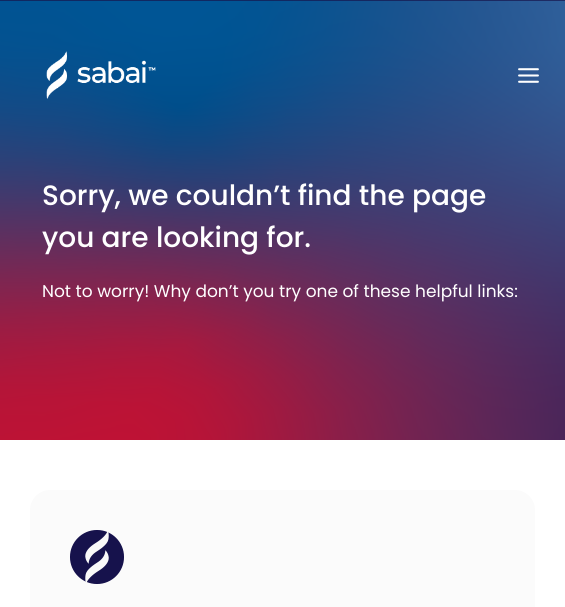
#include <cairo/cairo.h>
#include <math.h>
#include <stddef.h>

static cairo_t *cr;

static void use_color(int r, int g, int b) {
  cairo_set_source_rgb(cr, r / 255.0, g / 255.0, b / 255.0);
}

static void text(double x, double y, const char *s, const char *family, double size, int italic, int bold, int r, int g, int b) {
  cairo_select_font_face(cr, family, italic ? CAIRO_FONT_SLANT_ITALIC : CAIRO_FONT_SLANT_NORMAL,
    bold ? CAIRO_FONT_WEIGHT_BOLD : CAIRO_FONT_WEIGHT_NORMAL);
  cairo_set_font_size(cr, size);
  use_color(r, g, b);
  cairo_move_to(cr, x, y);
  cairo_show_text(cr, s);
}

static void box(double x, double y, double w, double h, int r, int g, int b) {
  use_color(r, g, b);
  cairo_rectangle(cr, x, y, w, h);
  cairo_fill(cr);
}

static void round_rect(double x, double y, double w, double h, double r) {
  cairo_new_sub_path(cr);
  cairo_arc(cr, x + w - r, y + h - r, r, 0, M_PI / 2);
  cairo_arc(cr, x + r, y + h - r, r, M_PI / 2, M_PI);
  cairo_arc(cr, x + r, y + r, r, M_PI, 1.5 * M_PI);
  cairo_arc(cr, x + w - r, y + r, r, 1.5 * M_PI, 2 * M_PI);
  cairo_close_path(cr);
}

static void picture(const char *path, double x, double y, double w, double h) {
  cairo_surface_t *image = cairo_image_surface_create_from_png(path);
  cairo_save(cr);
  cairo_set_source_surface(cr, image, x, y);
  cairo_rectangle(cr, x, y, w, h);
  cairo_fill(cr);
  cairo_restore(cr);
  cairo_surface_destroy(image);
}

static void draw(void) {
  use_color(255, 255, 255);
  cairo_paint(cr);
  box(0, 0, 565, 1, 23, 21, 76);
  picture("img_03.png", 0, 0, 565, 440);
  picture("img_01.png", 46, 51, 110, 48);
  picture("img_02.png", 518, 68, 21, 15);
  use_color(251, 251, 251);
  round_rect(30, 490, 505, 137, 20);
  cairo_fill(cr);
  picture("img_04.png", 70, 530, 54, 54);
  text(42, 205, "Sorry, we couldn’t find the page", "Poppins Medium", 28, 0, 0, 255, 255, 255);
  text(42, 247, "you are looking for.", "Poppins Medium", 28, 0, 0, 255, 255, 255);
  text(42, 297, "Not to worry! Why don’t you try one of these helpful links:", "Poppins", 17, 0, 0, 255, 255, 255);
}

int main(void) {
  cairo_surface_t *surface = cairo_image_surface_create(CAIRO_FORMAT_RGB24, 565, 607);
  cr = cairo_create(surface);
  cairo_font_options_t *options = cairo_font_options_create();
  cairo_font_options_set_hint_metrics(options, CAIRO_HINT_METRICS_OFF);
  cairo_font_options_set_hint_style(options, CAIRO_HINT_STYLE_NONE);
  cairo_set_font_options(cr, options);
  cairo_set_miter_limit(cr, 4);
  draw();
  cairo_surface_write_to_png(surface, "out.png");
  cairo_font_options_destroy(options);
  cairo_destroy(cr);
  cairo_surface_destroy(surface);
  return 0;
}
